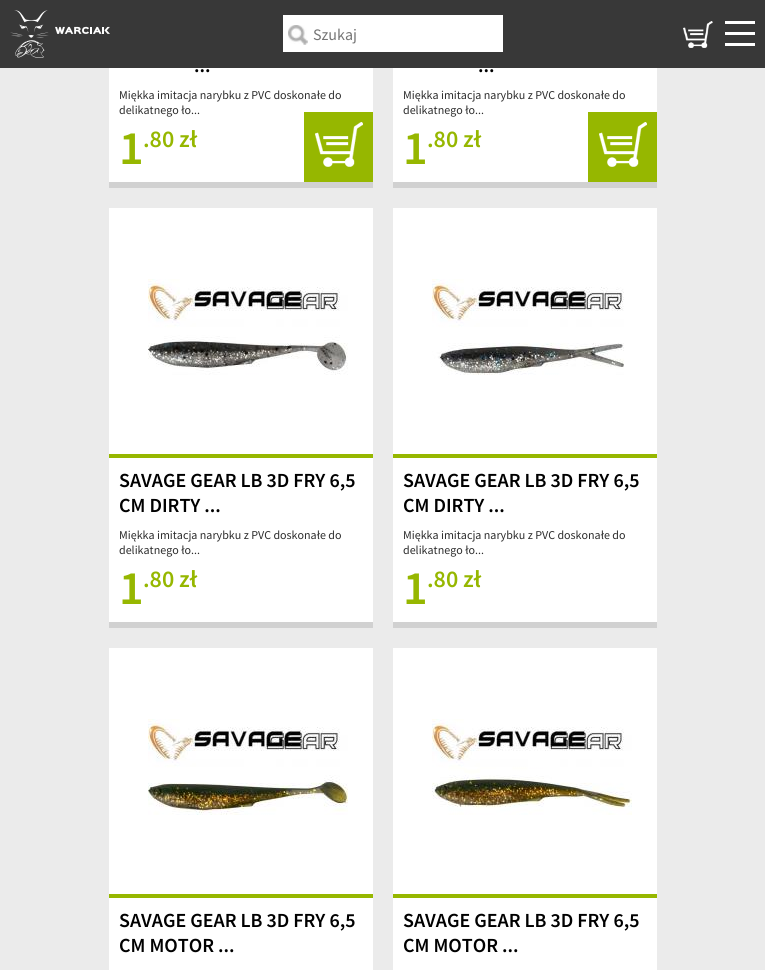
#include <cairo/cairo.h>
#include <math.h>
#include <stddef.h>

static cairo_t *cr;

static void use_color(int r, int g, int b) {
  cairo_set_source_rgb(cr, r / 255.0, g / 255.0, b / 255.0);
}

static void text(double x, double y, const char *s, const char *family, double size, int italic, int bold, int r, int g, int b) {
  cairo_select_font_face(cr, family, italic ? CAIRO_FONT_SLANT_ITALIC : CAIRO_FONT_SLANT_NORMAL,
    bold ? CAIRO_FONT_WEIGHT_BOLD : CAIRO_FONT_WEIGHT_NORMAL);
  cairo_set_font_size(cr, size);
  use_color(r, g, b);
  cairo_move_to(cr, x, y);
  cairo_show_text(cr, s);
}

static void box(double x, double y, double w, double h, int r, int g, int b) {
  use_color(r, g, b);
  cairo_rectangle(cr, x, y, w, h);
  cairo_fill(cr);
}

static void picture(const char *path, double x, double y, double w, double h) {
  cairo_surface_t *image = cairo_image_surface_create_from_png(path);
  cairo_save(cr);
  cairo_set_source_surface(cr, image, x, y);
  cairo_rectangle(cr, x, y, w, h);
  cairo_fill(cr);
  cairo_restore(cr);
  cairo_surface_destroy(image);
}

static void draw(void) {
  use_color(235, 235, 235);
  cairo_paint(cr);
  box(0, 0, 765, 68, 56, 56, 56);
  picture("img_01.png", 10, 10, 100, 48);
  box(283, 15, 220, 37, 255, 255, 255);
  picture("img_02.png", 288, 25, 20, 20);
  picture("img_03.png", 683, 21, 30, 27);
  box(725, 32, 30, 3, 255, 255, 255);
  box(725, 21, 30, 3, 255, 255, 255);
  box(725, 43, 30, 3, 255, 255, 255);
  box(109, 68, 264, 114, 255, 255, 255);
  box(109, 182, 264, 6, 209, 209, 209);
  box(304, 112, 69, 70, 150, 183, 0);
  picture("img_04.png", 315, 122, 48, 45);
  box(393, 68, 264, 114, 255, 255, 255);
  box(393, 182, 264, 6, 209, 209, 209);
  box(588, 112, 69, 70, 150, 183, 0);
  picture("img_04.png", 599, 122, 48, 45);
  box(109, 208, 264, 414, 255, 255, 255);
  box(109, 454, 264, 4, 150, 183, 0);
  box(109, 622, 264, 6, 209, 209, 209);
  picture("img_05.png", 148, 279, 200, 96);
  box(393, 208, 264, 414, 255, 255, 255);
  box(393, 454, 264, 4, 150, 183, 0);
  box(393, 622, 264, 6, 209, 209, 209);
  picture("img_06.png", 432, 279, 192, 96);
  box(109, 648, 264, 322, 255, 255, 255);
  box(109, 894, 264, 4, 150, 183, 0);
  picture("img_07.png", 148, 719, 200, 96);
  box(393, 648, 264, 322, 255, 255, 255);
  box(393, 894, 264, 4, 150, 183, 0);
  picture("img_08.png", 432, 719, 200, 96);
  text(313, 40, "Szukaj", "Source Sans Pro", 16, 0, 0, 117, 117, 117);
  text(194, 72, "...", "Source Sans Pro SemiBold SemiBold", 20, 0, 0, 0, 0, 0);
  text(119, 99, "Miękka imitacja narybku z PVC doskonałe do", "Source Sans Pro", 12, 0, 0, 44, 44, 44);
  text(119, 114, "delikatnego ło...", "Source Sans Pro", 12, 0, 0, 44, 44, 44);
  text(119, 164, "1", "Source Sans Pro SemiBold SemiBold", 48, 0, 0, 150, 183, 0);
  text(143, 147, ".80 zł", "Source Sans Pro SemiBold SemiBold", 24, 0, 0, 150, 183, 0);
  text(478, 72, "...", "Source Sans Pro SemiBold SemiBold", 20, 0, 0, 0, 0, 0);
  text(403, 99, "Miękka imitacja narybku z PVC doskonałe do", "Source Sans Pro", 12, 0, 0, 44, 44, 44);
  text(403, 114, "delikatnego ło...", "Source Sans Pro", 12, 0, 0, 44, 44, 44);
  text(403, 164, "1", "Source Sans Pro SemiBold SemiBold", 48, 0, 0, 150, 183, 0);
  text(427, 147, ".80 zł", "Source Sans Pro SemiBold SemiBold", 24, 0, 0, 150, 183, 0);
  text(119, 487, "SAVAGE GEAR LB 3D FRY 6,5", "Source Sans Pro SemiBold SemiBold", 20, 0, 0, 0, 0, 0);
  text(119, 512, "CM DIRTY ...", "Source Sans Pro SemiBold SemiBold", 20, 0, 0, 0, 0, 0);
  text(119, 539, "Miękka imitacja narybku z PVC doskonałe do", "Source Sans Pro", 12, 0, 0, 44, 44, 44);
  text(119, 554, "delikatnego ło...", "Source Sans Pro", 12, 0, 0, 44, 44, 44);
  text(119, 604, "1", "Source Sans Pro SemiBold SemiBold", 48, 0, 0, 150, 183, 0);
  text(143, 587, ".80 zł", "Source Sans Pro SemiBold SemiBold", 24, 0, 0, 150, 183, 0);
  text(403, 487, "SAVAGE GEAR LB 3D FRY 6,5", "Source Sans Pro SemiBold SemiBold", 20, 0, 0, 0, 0, 0);
  text(403, 512, "CM DIRTY ...", "Source Sans Pro SemiBold SemiBold", 20, 0, 0, 0, 0, 0);
  text(403, 539, "Miękka imitacja narybku z PVC doskonałe do", "Source Sans Pro", 12, 0, 0, 44, 44, 44);
  text(403, 554, "delikatnego ło...", "Source Sans Pro", 12, 0, 0, 44, 44, 44);
  text(403, 604, "1", "Source Sans Pro SemiBold SemiBold", 48, 0, 0, 150, 183, 0);
  text(427, 587, ".80 zł", "Source Sans Pro SemiBold SemiBold", 24, 0, 0, 150, 183, 0);
  text(119, 927, "SAVAGE GEAR LB 3D FRY 6,5", "Source Sans Pro SemiBold SemiBold", 20, 0, 0, 0, 0, 0);
  text(119, 952, "CM MOTOR ...", "Source Sans Pro SemiBold SemiBold", 20, 0, 0, 0, 0, 0);
  text(403, 927, "SAVAGE GEAR LB 3D FRY 6,5", "Source Sans Pro SemiBold SemiBold", 20, 0, 0, 0, 0, 0);
  text(403, 952, "CM MOTOR ...", "Source Sans Pro SemiBold SemiBold", 20, 0, 0, 0, 0, 0);
}

int main(void) {
  cairo_surface_t *surface = cairo_image_surface_create(CAIRO_FORMAT_RGB24, 765, 970);
  cr = cairo_create(surface);
  cairo_font_options_t *options = cairo_font_options_create();
  cairo_font_options_set_hint_metrics(options, CAIRO_HINT_METRICS_OFF);
  cairo_font_options_set_hint_style(options, CAIRO_HINT_STYLE_NONE);
  cairo_set_font_options(cr, options);
  cairo_set_miter_limit(cr, 4);
  draw();
  cairo_surface_write_to_png(surface, "out.png");
  cairo_font_options_destroy(options);
  cairo_destroy(cr);
  cairo_surface_destroy(surface);
  return 0;
}
